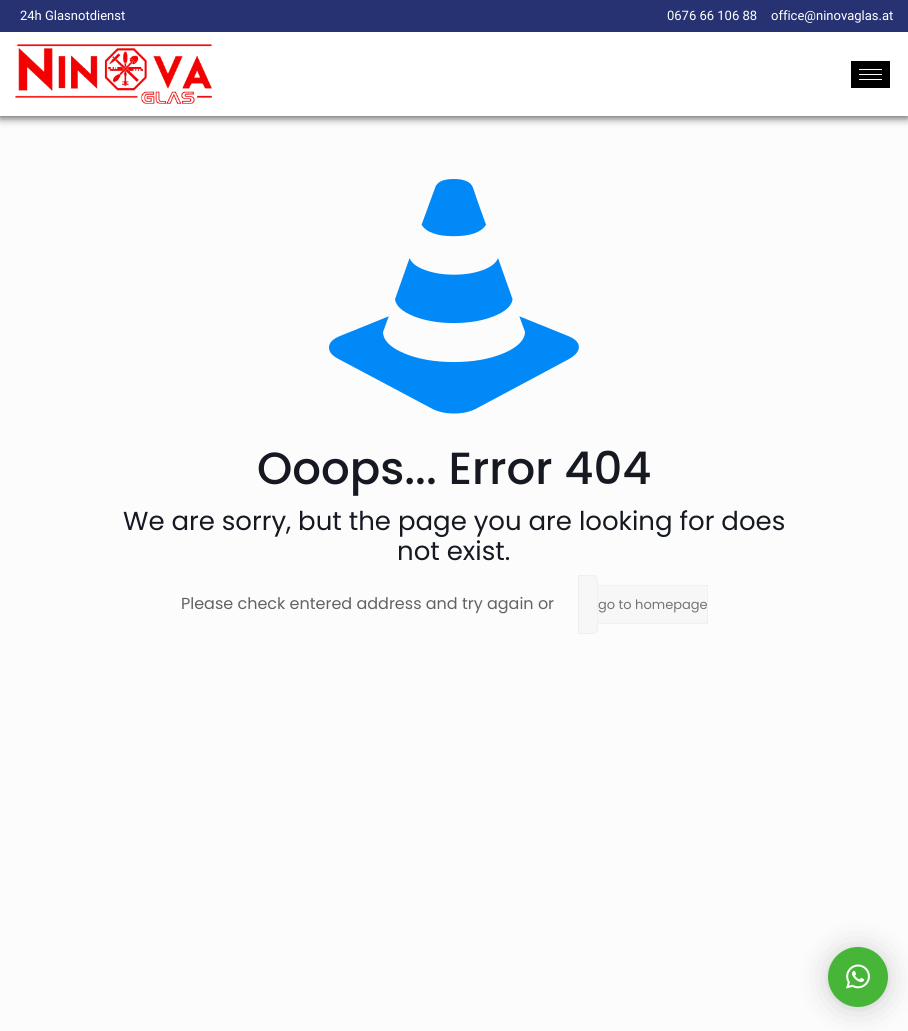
#include <cairo/cairo.h>
#include <math.h>
#include <stddef.h>

static cairo_t *cr;

static void use_color(int r, int g, int b) {
  cairo_set_source_rgb(cr, r / 255.0, g / 255.0, b / 255.0);
}

static void text(double x, double y, const char *s, const char *family, double size, int italic, int bold, int r, int g, int b) {
  cairo_select_font_face(cr, family, italic ? CAIRO_FONT_SLANT_ITALIC : CAIRO_FONT_SLANT_NORMAL,
    bold ? CAIRO_FONT_WEIGHT_BOLD : CAIRO_FONT_WEIGHT_NORMAL);
  cairo_set_font_size(cr, size);
  use_color(r, g, b);
  cairo_move_to(cr, x, y);
  cairo_show_text(cr, s);
}

static void box(double x, double y, double w, double h, int r, int g, int b) {
  use_color(r, g, b);
  cairo_rectangle(cr, x, y, w, h);
  cairo_fill(cr);
}

static void round_rect(double x, double y, double w, double h, double r) {
  cairo_new_sub_path(cr);
  cairo_arc(cr, x + w - r, y + h - r, r, 0, M_PI / 2);
  cairo_arc(cr, x + r, y + h - r, r, M_PI / 2, M_PI);
  cairo_arc(cr, x + r, y + r, r, M_PI, 1.5 * M_PI);
  cairo_arc(cr, x + w - r, y + r, r, 1.5 * M_PI, 2 * M_PI);
  cairo_close_path(cr);
}

static void shadow(double x, double y, double w, double h, double r, double blur, double alpha) {
  cairo_push_group_with_content(cr, CAIRO_CONTENT_ALPHA);
  cairo_set_operator(cr, CAIRO_OPERATOR_SOURCE);
  for (int i = 15; i >= -15 && fmin(w, h) + blur * i / 3 > 0; i -= 2) {
    double e = blur * i / 6;
    cairo_set_source_rgba(cr, 0, 0, 0, alpha * erfc((i - 1) / 8.5) / 2);
    round_rect(x - e, y - e, w + 2 * e, h + 2 * e, fmax(0, fmin(r + e + blur * .6, fmin(w, h) / 2 + e)));
    cairo_fill(cr);
  }
  cairo_pattern_t *soft = cairo_pop_group(cr);
  cairo_mask(cr, soft);
  cairo_pattern_destroy(soft);
}

static void picture(const char *path, double x, double y, double w, double h) {
  cairo_surface_t *image = cairo_image_surface_create_from_png(path);
  cairo_save(cr);
  cairo_set_source_surface(cr, image, x, y);
  cairo_rectangle(cr, x, y, w, h);
  cairo_fill(cr);
  cairo_restore(cr);
  cairo_surface_destroy(image);
}

static void draw(void) {
  use_color(252, 252, 252);
  cairo_paint(cr);
  use_color(0, 0, 0);
  shadow(0, 0, 908, 116, 0, 5, 0.5);
  shadow(0, 0, 908, 116, 0, 5, 0.5);
  box(0, 0, 908, 32, 39, 50, 114);
  box(0, 32, 908, 84, 255, 255, 255);
  picture("img_01.png", 15, 44, 197, 60);
  use_color(0, 0, 0);
  round_rect(849.5, 59.5, 42, 30, 1.5);
  cairo_fill_preserve(cr);
  use_color(255, 255, 255);
  cairo_set_line_width(cr, 3);
  cairo_stroke(cr);
  box(859, 69, 23, 1, 255, 255, 255);
  box(859, 74, 23, 1, 255, 255, 255);
  box(859, 79, 23, 1, 255, 255, 255);
  picture("img_02.png", 329, 179, 250, 235);
  box(598, 586, 109, 37, 247, 247, 247);
  cairo_rectangle(cr, 578.5, 585.5, 129, 38);
  use_color(240, 240, 240);
  cairo_set_line_width(cr, 1);
  cairo_stroke(cr);
  use_color(247, 247, 247);
  cairo_new_path(cr);
  cairo_move_to(cr, 578.5, 575.5);
  cairo_line_to(cr, 593, 575.5);
  cairo_curve_to(cr, 595.5, 575.5, 597.5, 577.5, 597.5, 580);
  cairo_line_to(cr, 597.5, 629);
  cairo_curve_to(cr, 597.5, 631.5, 595.5, 633.5, 593, 633.5);
  cairo_line_to(cr, 578.5, 633.5);
  cairo_close_path(cr);
  cairo_fill_preserve(cr);
  use_color(240, 240, 240);
  cairo_stroke(cr);
  use_color(0, 0, 0);
  shadow(828, 949, 60, 60, 30, 16, 0.16);
  shadow(828, 948, 60, 60, 30, 3, 0.06);
  use_color(70, 181, 56);
  cairo_arc(cr, 858, 977, 30, 0, 2 * M_PI);
  cairo_fill(cr);
  picture("img_03.png", 846, 964, 24, 25);
  text(20, 20, "24h Glasnotdienst", "Roboto", 13, 0, 0, 255, 255, 255);
  text(667, 20, "0676 66 106 88", "Roboto", 13, 0, 0, 255, 255, 255);
  text(771, 20, "office@ninovaglas.at", "Roboto", 13, 0, 0, 255, 255, 255);
  text(257, 484, "Ooops... Error 404", "Poppins Medium", 45, 0, 0, 22, 25, 34);
  text(123, 530, "We are sorry, but the page you are looking for does", "Poppins", 26, 0, 0, 22, 25, 34);
  text(397, 560, "not exist.", "Poppins", 26, 0, 0, 22, 25, 34);
  text(181, 609, "Please check entered address and try again or", "Poppins", 16, 0, 0, 98, 98, 98);
  text(598, 609, "go to homepage", "Poppins", 13, 0, 0, 116, 116, 116);
}

int main(void) {
  cairo_surface_t *surface = cairo_image_surface_create(CAIRO_FORMAT_RGB24, 908, 1031);
  cr = cairo_create(surface);
  cairo_font_options_t *options = cairo_font_options_create();
  cairo_font_options_set_hint_metrics(options, CAIRO_HINT_METRICS_OFF);
  cairo_font_options_set_hint_style(options, CAIRO_HINT_STYLE_NONE);
  cairo_set_font_options(cr, options);
  cairo_set_miter_limit(cr, 4);
  draw();
  cairo_surface_write_to_png(surface, "out.png");
  cairo_font_options_destroy(options);
  cairo_destroy(cr);
  cairo_surface_destroy(surface);
  return 0;
}
